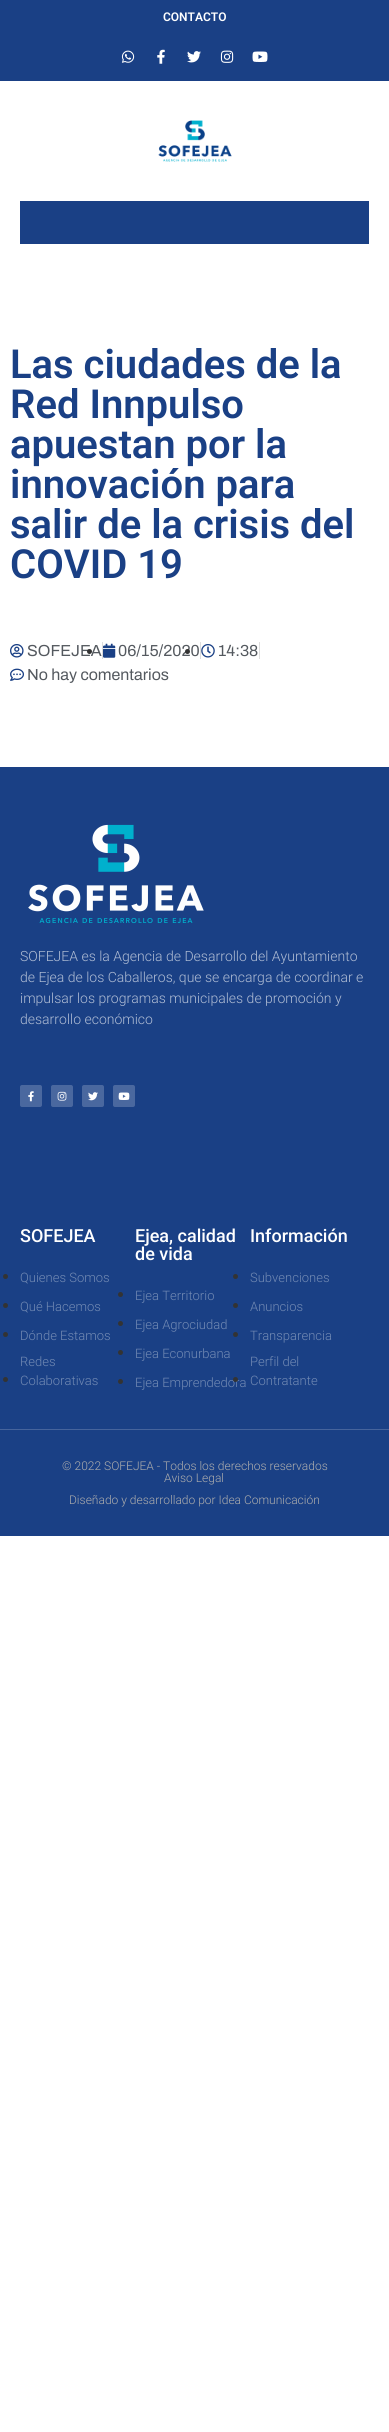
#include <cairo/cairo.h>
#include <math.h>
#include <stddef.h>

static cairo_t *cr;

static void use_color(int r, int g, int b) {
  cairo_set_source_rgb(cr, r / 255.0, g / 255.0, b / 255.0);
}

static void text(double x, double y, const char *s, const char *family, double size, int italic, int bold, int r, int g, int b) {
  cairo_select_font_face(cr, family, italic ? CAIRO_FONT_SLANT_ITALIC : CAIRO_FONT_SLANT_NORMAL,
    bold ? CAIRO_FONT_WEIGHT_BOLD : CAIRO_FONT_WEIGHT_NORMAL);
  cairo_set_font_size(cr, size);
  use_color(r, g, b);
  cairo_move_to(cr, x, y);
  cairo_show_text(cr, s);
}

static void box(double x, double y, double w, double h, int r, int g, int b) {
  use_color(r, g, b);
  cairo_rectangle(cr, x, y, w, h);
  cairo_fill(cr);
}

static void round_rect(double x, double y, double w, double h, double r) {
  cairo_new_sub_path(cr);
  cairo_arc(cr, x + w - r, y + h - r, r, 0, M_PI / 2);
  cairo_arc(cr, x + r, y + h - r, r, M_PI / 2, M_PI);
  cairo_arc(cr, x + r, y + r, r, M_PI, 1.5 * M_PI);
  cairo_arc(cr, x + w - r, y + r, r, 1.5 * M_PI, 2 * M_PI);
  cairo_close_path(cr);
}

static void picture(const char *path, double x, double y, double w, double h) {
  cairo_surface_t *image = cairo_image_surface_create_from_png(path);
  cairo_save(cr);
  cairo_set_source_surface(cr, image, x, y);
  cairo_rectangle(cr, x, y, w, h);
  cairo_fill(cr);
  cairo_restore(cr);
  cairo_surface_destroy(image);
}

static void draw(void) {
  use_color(255, 255, 255);
  cairo_paint(cr);
  box(0, 0, 389, 81, 26, 64, 133);
  picture("img_01.png", 121, 50, 14, 13);
  picture("img_02.png", 157, 49, 8, 15);
  picture("img_03.png", 187, 51, 14, 12);
  picture("img_04.png", 220, 50, 14, 13);
  picture("img_05.png", 252, 51, 16, 11);
  picture("img_06.png", 158, 120, 74, 42);
  box(20, 201, 349, 43, 26, 64, 133);
  picture("img_07.png", 10, 644, 14, 14);
  box(102, 642, 1, 17, 221, 221, 221);
  picture("img_08.png", 103, 643, 13, 15);
  box(200, 642, 1, 17, 221, 221, 221);
  picture("img_09.png", 201, 644, 14, 14);
  box(259, 642, 1, 17, 221, 221, 221);
  picture("img_10.png", 10, 668, 14, 13);
  box(0, 767, 389, 662, 26, 64, 133);
  picture("img_11.png", 28, 824, 176, 100);
  use_color(74, 104, 159);
  round_rect(20, 1085, 22, 22, 2);
  cairo_fill(cr);
  picture("img_12.png", 28, 1091, 6, 11);
  round_rect(51, 1085, 22, 22, 2);
  cairo_fill(cr);
  picture("img_13.png", 57, 1091, 10, 10);
  round_rect(82, 1085, 22, 22, 2);
  cairo_fill(cr);
  picture("img_14.png", 88, 1092, 10, 9);
  round_rect(113, 1085, 22, 22, 2);
  cairo_fill(cr);
  picture("img_15.png", 118, 1092, 12, 8);
  use_color(51, 51, 51);
  cairo_arc(cr, 5.5, 1276.5, 2.5, 0, 2 * M_PI);
  cairo_fill(cr);
  cairo_arc(cr, 5.5, 1305.5, 2.5, 0, 2 * M_PI);
  cairo_fill(cr);
  cairo_arc(cr, 5.5, 1334.5, 2.5, 0, 2 * M_PI);
  cairo_fill(cr);
  cairo_arc(cr, 5.5, 1379.5, 2.5, 0, 2 * M_PI);
  cairo_fill(cr);
  cairo_arc(cr, 120.5, 1294.5, 2.5, 0, 2 * M_PI);
  cairo_fill(cr);
  cairo_arc(cr, 120.5, 1323.5, 2.5, 0, 2 * M_PI);
  cairo_fill(cr);
  cairo_arc(cr, 120.5, 1352.5, 2.5, 0, 2 * M_PI);
  cairo_fill(cr);
  cairo_arc(cr, 120.5, 1381.5, 2.5, 0, 2 * M_PI);
  cairo_fill(cr);
  cairo_arc(cr, 235.5, 1276.5, 2.5, 0, 2 * M_PI);
  cairo_fill(cr);
  cairo_arc(cr, 235.5, 1305.5, 2.5, 0, 2 * M_PI);
  cairo_fill(cr);
  cairo_arc(cr, 235.5, 1334.5, 2.5, 0, 2 * M_PI);
  cairo_fill(cr);
  box(0, 1430, 389, 106, 26, 64, 133);
  box(0, 1429, 389, 1, 70, 100, 156);
  text(163, 21, "CONTACTO", "Roboto SemiBold", 12, 0, 0, 255, 255, 255);
  text(10, 378, "Las ciudades de la", "Roboto SemiBold", 40, 0, 0, 26, 64, 133);
  text(10, 418, "Red Innpulso", "Roboto SemiBold", 40, 0, 0, 26, 64, 133);
  text(10, 458, "apuestan por la", "Roboto SemiBold", 40, 0, 0, 26, 64, 133);
  text(10, 498, "innovación para", "Roboto SemiBold", 40, 0, 0, 26, 64, 133);
  text(10, 538, "salir de la crisis del", "Roboto SemiBold", 40, 0, 0, 26, 64, 133);
  text(10, 578, "COVID 19", "Roboto SemiBold", 40, 0, 0, 26, 64, 133);
  text(27, 656, "SOFEJEA", "Archivo", 16, 0, 0, 84, 89, 95);
  use_color(51, 51, 51);
  cairo_new_path(cr);
  cairo_arc(cr, 89.5, 651.5, 2.5, 0, 2 * M_PI);
  cairo_fill(cr);
  text(118, 656, "06/15/2020", "Archivo", 16, 0, 0, 84, 89, 95);
  use_color(51, 51, 51);
  cairo_new_path(cr);
  cairo_arc(cr, 187.5, 651.5, 2.5, 0, 2 * M_PI);
  cairo_fill(cr);
  text(218, 656, "14:38", "Archivo", 16, 0, 0, 84, 89, 95);
  text(27, 680, "No hay comentarios", "Archivo", 16, 0, 0, 84, 89, 95);
  text(20, 961, "SOFEJEA es la Agencia de Desarrollo del Ayuntamiento", "Roboto Light", 14, 0, 0, 175, 188, 212);
  text(20, 982, "de Ejea de los Caballeros, que se encarga de coordinar e", "Roboto Light", 14, 0, 0, 175, 188, 212);
  text(20, 1003, "impulsar los programas municipales de promoción y", "Roboto Light", 14, 0, 0, 175, 188, 212);
  text(20, 1024, "desarrollo económico", "Roboto Light", 14, 0, 0, 175, 188, 212);
  text(20, 1242, "SOFEJEA", "Roboto Medium", 18, 0, 0, 255, 255, 255);
  text(20, 1282, "Quienes Somos", "Roboto Light", 13, 0, 0, 113, 137, 179);
  text(20, 1311, "Qué Hacemos", "Roboto Light", 13, 0, 0, 113, 137, 179);
  text(20, 1340, "Dónde Estamos", "Roboto Light", 13, 0, 0, 113, 137, 179);
  text(20, 1366, "Redes", "Roboto Light", 13, 0, 0, 113, 137, 179);
  text(20, 1385, "Colaborativas", "Roboto Light", 13, 0, 0, 113, 137, 179);
  text(135, 1242, "Ejea, calidad", "Roboto Medium", 18, 0, 0, 255, 255, 255);
  text(135, 1260, "de vida", "Roboto Medium", 18, 0, 0, 255, 255, 255);
  text(135, 1300, "Ejea Territorio", "Roboto Light", 13, 0, 0, 113, 137, 179);
  text(135, 1329, "Ejea Agrociudad", "Roboto Light", 13, 0, 0, 113, 137, 179);
  text(135, 1358, "Ejea Econurbana", "Roboto Light", 13, 0, 0, 113, 137, 179);
  text(135, 1387, "Ejea Emprendedora", "Roboto Light", 13, 0, 0, 113, 137, 179);
  text(250, 1242, "Información", "Roboto Medium", 18, 0, 0, 255, 255, 255);
  text(250, 1282, "Subvenciones", "Roboto Light", 13, 0, 0, 113, 137, 179);
  text(250, 1311, "Anuncios", "Roboto Light", 13, 0, 0, 113, 137, 179);
  text(250, 1340, "Transparencia", "Roboto Light", 13, 0, 0, 113, 137, 179);
  use_color(51, 51, 51);
  cairo_new_path(cr);
  cairo_arc(cr, 235.5, 1379.5, 2.5, 0, 2 * M_PI);
  cairo_fill(cr);
  text(250, 1366, "Perfil del", "Roboto Light", 13, 0, 0, 113, 137, 179);
  text(250, 1385, "Contratante", "Roboto Light", 13, 0, 0, 113, 137, 179);
  text(62, 1470, "© 2022 SOFEJEA - Todos los derechos reservados", "Roboto Light", 12, 0, 0, 173, 173, 173);
  text(164, 1482, "Aviso Legal", "Roboto Light", 12, 0, 0, 173, 173, 173);
  text(69, 1504, "Diseñado y desarrollado por Idea Comunicación", "Roboto Light", 12, 0, 0, 173, 173, 173);
}

int main(void) {
  cairo_surface_t *surface = cairo_image_surface_create(CAIRO_FORMAT_RGB24, 389, 2432);
  cr = cairo_create(surface);
  cairo_font_options_t *options = cairo_font_options_create();
  cairo_font_options_set_hint_metrics(options, CAIRO_HINT_METRICS_OFF);
  cairo_font_options_set_hint_style(options, CAIRO_HINT_STYLE_NONE);
  cairo_set_font_options(cr, options);
  cairo_set_miter_limit(cr, 4);
  draw();
  cairo_surface_write_to_png(surface, "out.png");
  cairo_font_options_destroy(options);
  cairo_destroy(cr);
  cairo_surface_destroy(surface);
  return 0;
}
